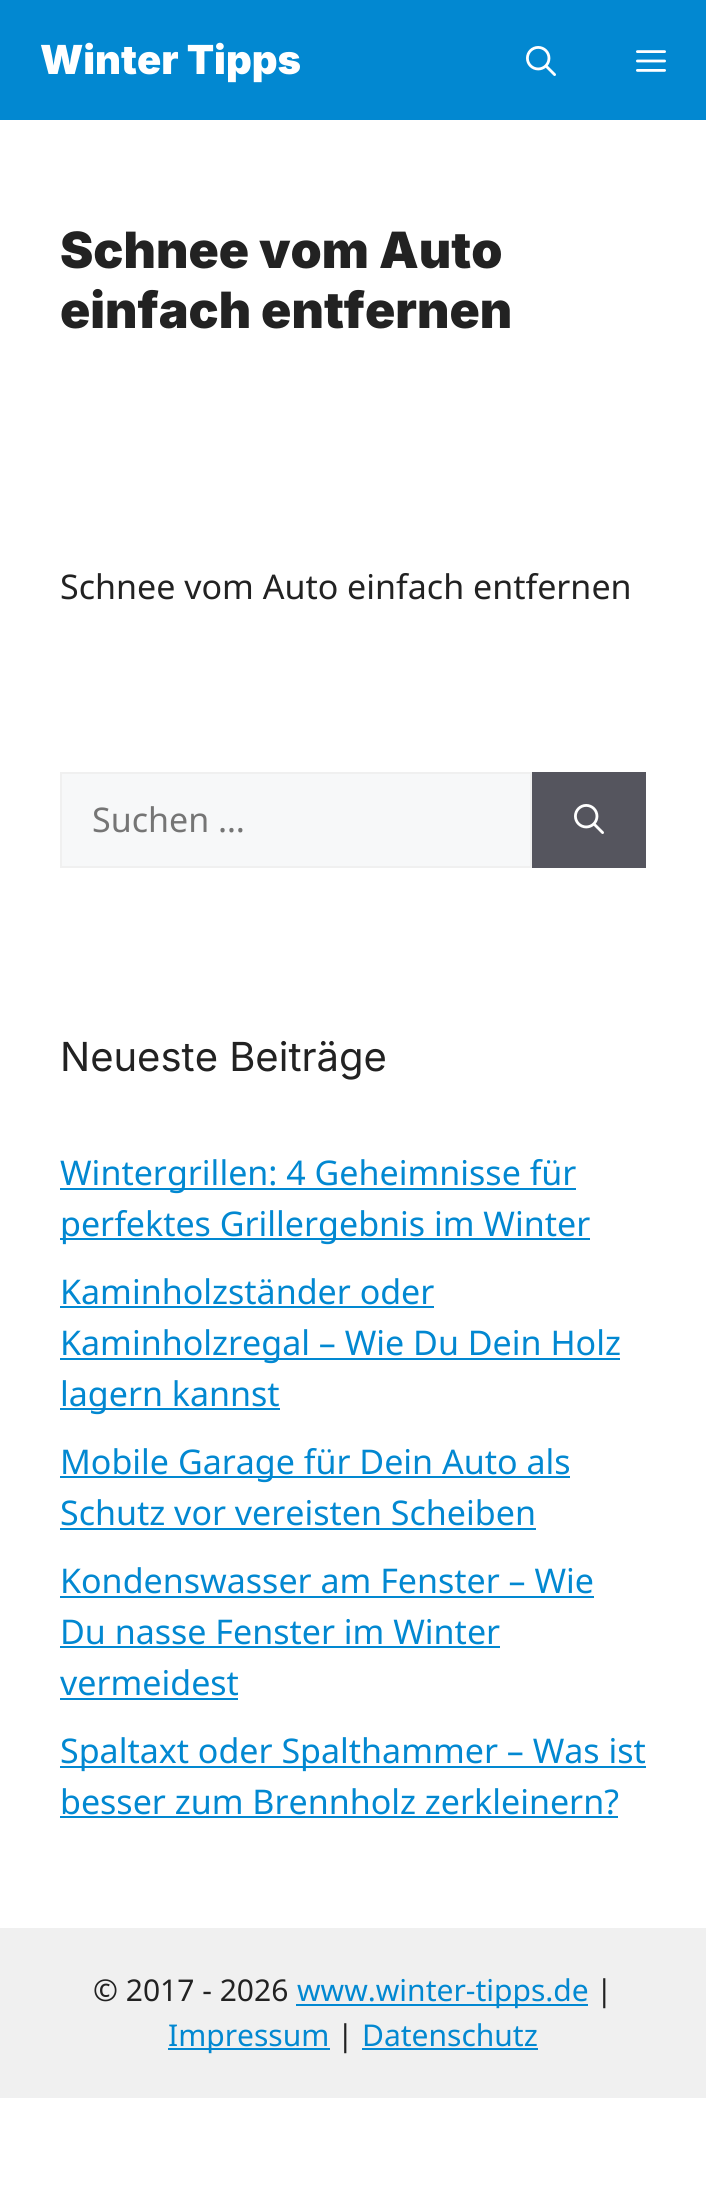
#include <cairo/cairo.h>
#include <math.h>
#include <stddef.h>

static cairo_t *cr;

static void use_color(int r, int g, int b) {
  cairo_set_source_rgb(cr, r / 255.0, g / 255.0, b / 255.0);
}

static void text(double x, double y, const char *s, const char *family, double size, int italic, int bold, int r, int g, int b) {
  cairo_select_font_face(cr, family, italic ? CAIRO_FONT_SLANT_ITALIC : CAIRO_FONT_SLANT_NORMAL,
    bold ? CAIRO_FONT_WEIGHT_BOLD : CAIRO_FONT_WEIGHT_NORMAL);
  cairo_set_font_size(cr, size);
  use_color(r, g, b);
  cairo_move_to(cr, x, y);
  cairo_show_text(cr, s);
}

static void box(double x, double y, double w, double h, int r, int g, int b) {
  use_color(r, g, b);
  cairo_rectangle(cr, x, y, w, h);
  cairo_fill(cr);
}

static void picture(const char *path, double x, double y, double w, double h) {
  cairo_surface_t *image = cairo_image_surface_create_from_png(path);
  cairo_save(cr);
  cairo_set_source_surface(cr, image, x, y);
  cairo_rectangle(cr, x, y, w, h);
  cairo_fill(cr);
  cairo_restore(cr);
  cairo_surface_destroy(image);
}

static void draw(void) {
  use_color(255, 255, 255);
  cairo_paint(cr);
  box(0, 0, 706, 120, 2, 136, 209);
  picture("img_01.png", 526, 46, 30, 30);
  picture("img_02.png", 636, 50, 30, 22);
  use_color(247, 248, 249);
  cairo_rectangle(cr, 61, 773, 470, 94);
  cairo_fill_preserve(cr);
  use_color(240, 240, 240);
  cairo_stroke(cr);
  box(532, 772, 114, 96, 85, 85, 94);
  picture("img_03.png", 574, 804, 30, 30);
  box(60, 1188, 516, 2, 2, 136, 209);
  box(60, 1238, 530, 2, 2, 136, 209);
  box(60, 1306, 374, 2, 2, 136, 209);
  box(60, 1358, 560, 2, 2, 136, 209);
  box(60, 1408, 220, 2, 2, 136, 209);
  box(60, 1476, 510, 2, 2, 136, 209);
  box(60, 1528, 476, 2, 2, 136, 209);
  box(60, 1596, 534, 2, 2, 136, 209);
  box(60, 1646, 440, 2, 2, 136, 209);
  box(60, 1698, 178, 2, 2, 136, 209);
  box(60, 1766, 586, 2, 2, 136, 209);
  box(60, 1816, 558, 2, 2, 136, 209);
  box(0, 1928, 706, 170, 240, 240, 240);
  box(296, 2004, 292, 2, 2, 136, 209);
  box(168, 2048, 162, 2, 2, 136, 209);
  box(362, 2048, 176, 2, 2, 136, 209);
  text(40, 74, "Winter Tipps", "Inter Black", 40, 0, 0, 255, 255, 255);
  text(60, 268, "Schnee vom Auto", "Inter Black", 50, 0, 0, 34, 34, 34);
  text(60, 328, "einfach entfernen", "Inter Black", 50, 0, 0, 34, 34, 34);
  text(60, 599, "Schnee vom Auto einfach entfernen", "Noto Sans", 34, 0, 0, 34, 34, 34);
  text(92, 832, "Suchen …", "Noto Sans", 34, 0, 0, 117, 117, 117);
  text(60, 1071, "Neueste Beiträge", "Inter", 40, 0, 0, 34, 34, 34);
  text(60, 1185, "Wintergrillen: 4 Geheimnisse für", "Noto Sans", 34, 0, 0, 2, 136, 209);
  text(60, 1236, "perfektes Grillergebnis im Winter", "Noto Sans", 34, 0, 0, 2, 136, 209);
  text(60, 1304, "Kaminholzständer oder", "Noto Sans", 34, 0, 0, 2, 136, 209);
  text(60, 1355, "Kaminholzregal – Wie Du Dein Holz", "Noto Sans", 34, 0, 0, 2, 136, 209);
  text(60, 1406, "lagern kannst", "Noto Sans", 34, 0, 0, 2, 136, 209);
  text(60, 1474, "Mobile Garage für Dein Auto als", "Noto Sans", 34, 0, 0, 2, 136, 209);
  text(60, 1525, "Schutz vor vereisten Scheiben", "Noto Sans", 34, 0, 0, 2, 136, 209);
  text(60, 1593, "Kondenswasser am Fenster – Wie", "Noto Sans", 34, 0, 0, 2, 136, 209);
  text(60, 1644, "Du nasse Fenster im Winter", "Noto Sans", 34, 0, 0, 2, 136, 209);
  text(60, 1695, "vermeidest", "Noto Sans", 34, 0, 0, 2, 136, 209);
  text(60, 1763, "Spaltaxt oder Spalthammer – Was ist", "Noto Sans", 34, 0, 0, 2, 136, 209);
  text(60, 1814, "besser zum Brennholz zerkleinern?", "Noto Sans", 34, 0, 0, 2, 136, 209);
  text(93, 2001, "© 2017 - 2026", "Noto Sans", 30, 0, 0, 34, 34, 34);
  text(297, 2001, "www.winter-tipps.de", "Noto Sans", 30, 0, 0, 2, 136, 209);
  text(596, 2001, "|", "Noto Sans", 30, 0, 0, 34, 34, 34);
  text(168, 2046, "Impressum", "Noto Sans", 30, 0, 0, 2, 136, 209);
  text(337, 2046, "|", "Noto Sans", 30, 0, 0, 34, 34, 34);
  text(362, 2046, "Datenschutz", "Noto Sans", 30, 0, 0, 2, 136, 209);
}

int main(void) {
  cairo_surface_t *surface = cairo_image_surface_create(CAIRO_FORMAT_RGB24, 706, 2187);
  cr = cairo_create(surface);
  cairo_font_options_t *options = cairo_font_options_create();
  cairo_font_options_set_hint_metrics(options, CAIRO_HINT_METRICS_OFF);
  cairo_font_options_set_hint_style(options, CAIRO_HINT_STYLE_NONE);
  cairo_set_font_options(cr, options);
  cairo_set_miter_limit(cr, 4);
  draw();
  cairo_surface_write_to_png(surface, "out.png");
  cairo_font_options_destroy(options);
  cairo_destroy(cr);
  cairo_surface_destroy(surface);
  return 0;
}
